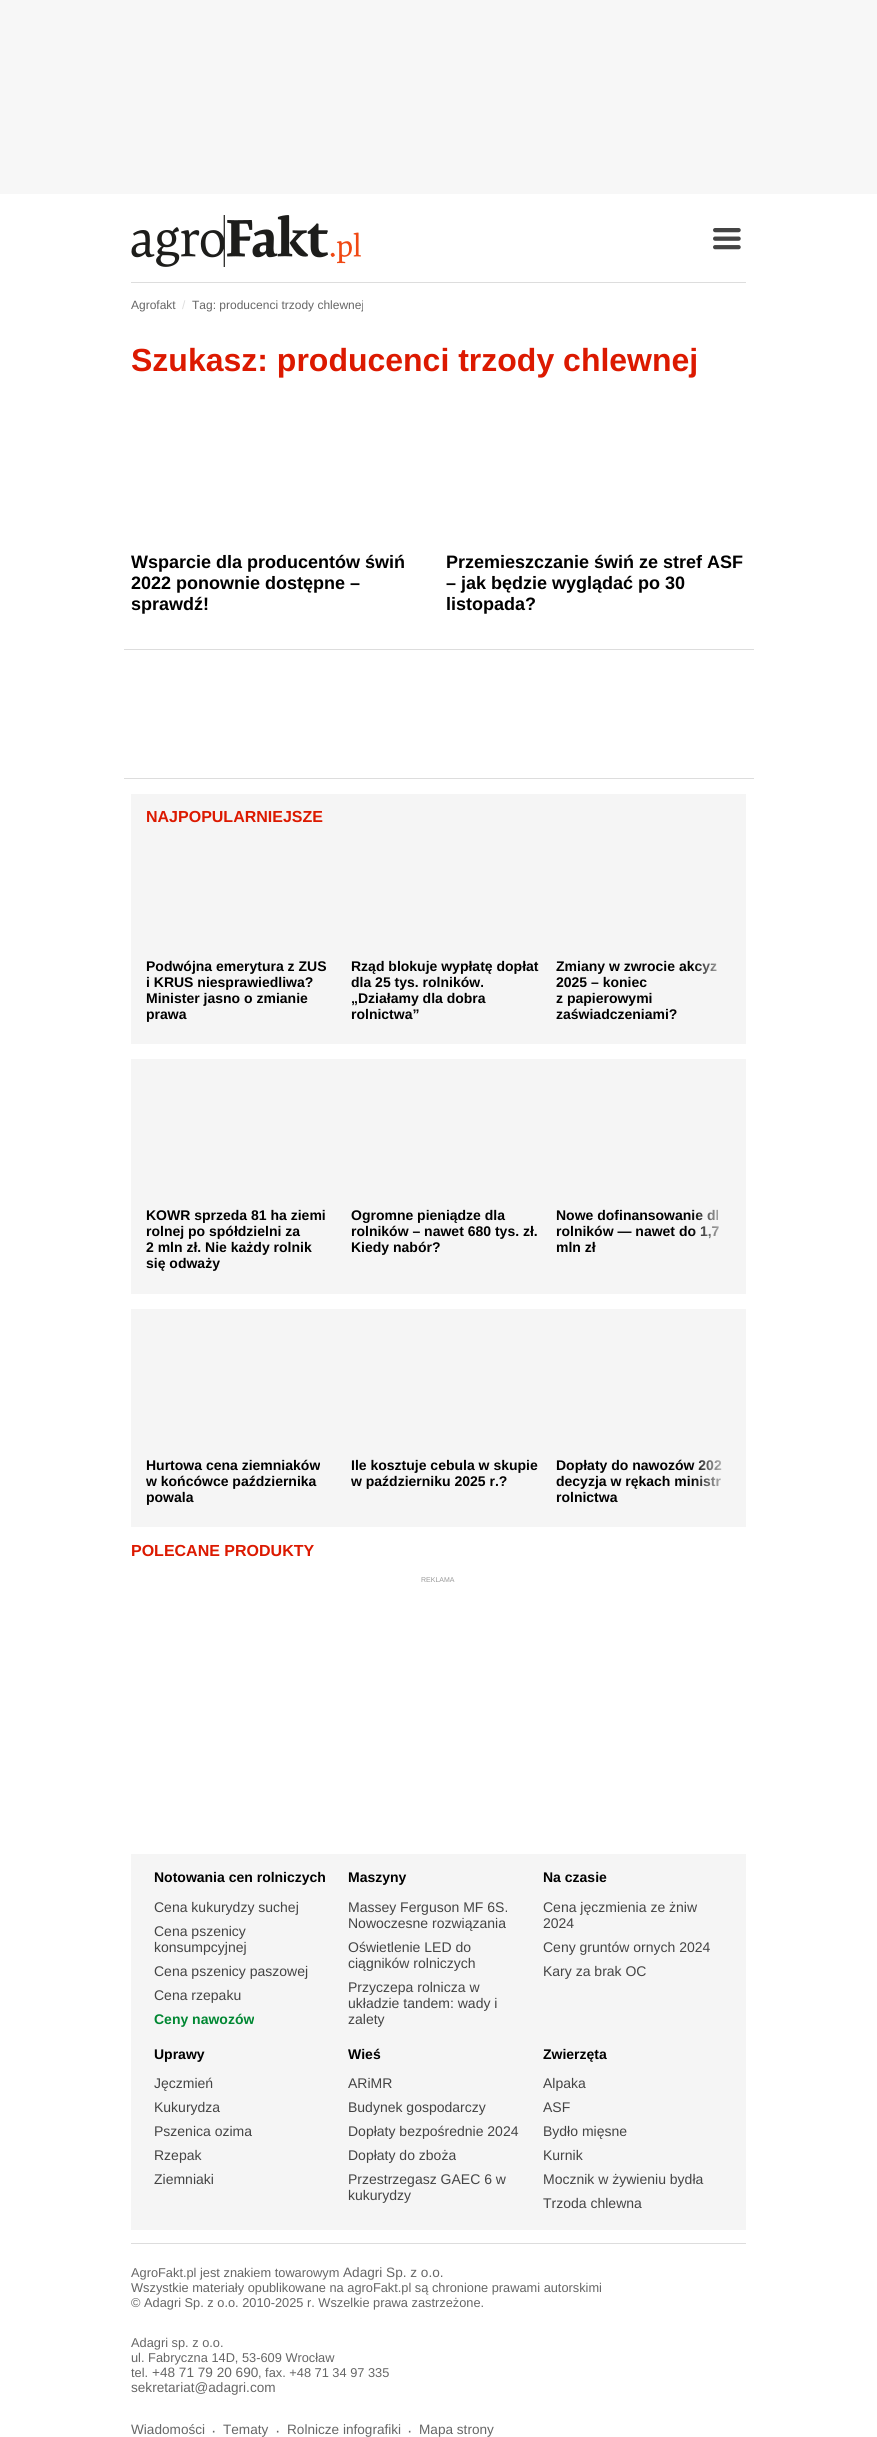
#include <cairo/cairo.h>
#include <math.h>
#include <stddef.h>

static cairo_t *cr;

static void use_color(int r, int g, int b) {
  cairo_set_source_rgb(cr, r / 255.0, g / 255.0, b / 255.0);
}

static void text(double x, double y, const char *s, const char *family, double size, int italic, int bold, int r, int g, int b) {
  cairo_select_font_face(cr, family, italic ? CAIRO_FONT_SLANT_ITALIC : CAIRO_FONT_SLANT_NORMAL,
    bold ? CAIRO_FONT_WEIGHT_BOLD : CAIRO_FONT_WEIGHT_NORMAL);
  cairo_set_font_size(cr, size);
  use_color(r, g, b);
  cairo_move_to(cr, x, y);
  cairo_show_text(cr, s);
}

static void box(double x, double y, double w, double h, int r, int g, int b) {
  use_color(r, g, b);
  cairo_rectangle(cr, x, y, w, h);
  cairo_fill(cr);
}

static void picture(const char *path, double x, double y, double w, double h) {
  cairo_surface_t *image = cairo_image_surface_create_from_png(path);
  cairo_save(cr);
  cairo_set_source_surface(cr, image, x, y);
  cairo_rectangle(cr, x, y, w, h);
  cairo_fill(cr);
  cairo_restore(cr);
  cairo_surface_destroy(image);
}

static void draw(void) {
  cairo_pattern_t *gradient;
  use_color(255, 255, 255);
  cairo_paint(cr);
  box(0, 0, 877, 194, 247, 247, 247);
  picture("img_01.png", 131, 215, 230, 52);
  picture("img_02.png", 713, 228, 28, 22);
  box(131, 282, 615, 1, 221, 221, 221);
  box(124, 649, 630, 1, 221, 221, 221);
  box(124, 778, 630, 1, 221, 221, 221);
  box(131, 794, 615, 250, 245, 245, 245);
  box(131, 1059, 615, 235, 245, 245, 245);
  box(131, 1309, 615, 218, 245, 245, 245);
  box(131, 1854, 615, 376, 245, 245, 245);
  box(131, 2243, 615, 1, 221, 221, 221);
  text(131, 309, "Agrofakt", "Liberation Sans", 12, 0, 0, 102, 102, 102);
  text(182, 309, "/", "Liberation Sans", 12, 0, 0, 221, 221, 221);
  text(192, 309, "Tag: producenci trzody chlewnej", "Liberation Sans", 12, 0, 0, 102, 102, 102);
  text(131, 371, "Szukasz: producenci trzody chlewnej", "Liberation Sans", 32, 0, 1, 220, 25, 0);
  text(131, 568, "Wsparcie dla producentów świń", "Liberation Sans", 18, 0, 1, 0, 0, 0);
  text(131, 589, "2022 ponownie dostępne –", "Liberation Sans", 18, 0, 1, 0, 0, 0);
  text(131, 610, "sprawdź!", "Liberation Sans", 18, 0, 1, 0, 0, 0);
  text(446, 568, "Przemieszczanie świń ze stref ASF", "Liberation Sans", 18, 0, 1, 0, 0, 0);
  text(446, 589, "– jak będzie wyglądać po 30", "Liberation Sans", 18, 0, 1, 0, 0, 0);
  text(446, 610, "listopada?", "Liberation Sans", 18, 0, 1, 0, 0, 0);
  text(146, 822, "NAJPOPULARNIEJSZE", "Liberation Sans", 16, 0, 1, 220, 25, 0);
  text(146, 971, "Podwójna emerytura z ZUS", "Liberation Sans", 14, 0, 1, 0, 0, 0);
  text(146, 987, "i KRUS niesprawiedliwa?", "Liberation Sans", 14, 0, 1, 0, 0, 0);
  text(146, 1003, "Minister jasno o zmianie", "Liberation Sans", 14, 0, 1, 0, 0, 0);
  text(146, 1019, "prawa", "Liberation Sans", 14, 0, 1, 0, 0, 0);
  text(351, 971, "Rząd blokuje wypłatę dopłat", "Liberation Sans", 14, 0, 1, 0, 0, 0);
  text(351, 987, "dla 25 tys. rolników.", "Liberation Sans", 14, 0, 1, 0, 0, 0);
  text(351, 1003, "„Działamy dla dobra", "Liberation Sans", 14, 0, 1, 0, 0, 0);
  text(351, 1019, "rolnictwa”", "Liberation Sans", 14, 0, 1, 0, 0, 0);
  text(556, 971, "Zmiany w zwrocie akcyz", "Liberation Sans", 14, 0, 1, 0, 0, 0);
  text(556, 987, "2025 – koniec", "Liberation Sans", 14, 0, 1, 0, 0, 0);
  text(556, 1003, "z papierowymi", "Liberation Sans", 14, 0, 1, 0, 0, 0);
  text(556, 1019, "zaświadczeniami?", "Liberation Sans", 14, 0, 1, 0, 0, 0);
  gradient = cairo_pattern_create_linear(692, 919, 732, 919);
  cairo_pattern_add_color_stop_rgba(gradient, 0, 0.961, 0.961, 0.961, 0);
  cairo_pattern_add_color_stop_rgba(gradient, 1, 0.961, 0.961, 0.961, 1);
  cairo_set_source(cr, gradient);
  cairo_pattern_destroy(gradient);
  cairo_rectangle(cr, 693, 963, 24, 11);
  cairo_fill(cr);
  text(146, 1220, "KOWR sprzeda 81 ha ziemi", "Liberation Sans", 14, 0, 1, 0, 0, 0);
  text(146, 1236, "rolnej po spółdzielni za", "Liberation Sans", 14, 0, 1, 0, 0, 0);
  text(146, 1252, "2 mln zł. Nie każdy rolnik", "Liberation Sans", 14, 0, 1, 0, 0, 0);
  text(146, 1268, "się odważy", "Liberation Sans", 14, 0, 1, 0, 0, 0);
  text(351, 1220, "Ogromne pieniądze dla", "Liberation Sans", 14, 0, 1, 0, 0, 0);
  text(351, 1236, "rolników – nawet 680 tys. zł.", "Liberation Sans", 14, 0, 1, 0, 0, 0);
  text(351, 1252, "Kiedy nabór?", "Liberation Sans", 14, 0, 1, 0, 0, 0);
  text(556, 1220, "Nowe dofinansowanie dl", "Liberation Sans", 14, 0, 1, 0, 0, 0);
  text(556, 1236, "rolników — nawet do 1,7", "Liberation Sans", 14, 0, 1, 0, 0, 0);
  text(556, 1252, "mln zł", "Liberation Sans", 14, 0, 1, 0, 0, 0);
  gradient = cairo_pattern_create_linear(692, 1177, 732, 1177);
  cairo_pattern_add_color_stop_rgba(gradient, 0, 0.961, 0.961, 0.961, 0);
  cairo_pattern_add_color_stop_rgba(gradient, 1, 0.961, 0.961, 0.961, 1);
  cairo_set_source(cr, gradient);
  cairo_pattern_destroy(gradient);
  cairo_rectangle(cr, 693, 1209, 26, 30);
  cairo_fill(cr);
  text(146, 1470, "Hurtowa cena ziemniaków", "Liberation Sans", 14, 0, 1, 0, 0, 0);
  text(146, 1486, "w końcówce października", "Liberation Sans", 14, 0, 1, 0, 0, 0);
  text(146, 1502, "powala", "Liberation Sans", 14, 0, 1, 0, 0, 0);
  text(351, 1470, "Ile kosztuje cebula w skupie", "Liberation Sans", 14, 0, 1, 0, 0, 0);
  text(351, 1486, "w październiku 2025 r.?", "Liberation Sans", 14, 0, 1, 0, 0, 0);
  text(556, 1470, "Dopłaty do nawozów 202", "Liberation Sans", 14, 0, 1, 0, 0, 0);
  text(556, 1486, "decyzja w rękach ministr", "Liberation Sans", 14, 0, 1, 0, 0, 0);
  text(556, 1502, "rolnictwa", "Liberation Sans", 14, 0, 1, 0, 0, 0);
  gradient = cairo_pattern_create_linear(692, 1418, 732, 1418);
  cairo_pattern_add_color_stop_rgba(gradient, 0, 0.961, 0.961, 0.961, 0);
  cairo_pattern_add_color_stop_rgba(gradient, 1, 0.961, 0.961, 0.961, 1);
  cairo_set_source(cr, gradient);
  cairo_pattern_destroy(gradient);
  cairo_rectangle(cr, 693, 1460, 29, 27);
  cairo_fill(cr);
  text(131, 1556, "POLECANE PRODUKTY", "Liberation Sans", 16, 0, 1, 220, 25, 0);
  text(421, 1582, "REKLAMA", "Liberation Sans", 7, 0, 0, 153, 153, 153);
  text(154, 1882, "Notowania cen rolniczych", "Liberation Sans", 14, 0, 1, 0, 0, 0);
  text(154, 1912, "Cena kukurydzy suchej", "Liberation Sans", 14, 0, 0, 68, 68, 68);
  text(154, 1936, "Cena pszenicy", "Liberation Sans", 14, 0, 0, 68, 68, 68);
  text(154, 1952, "konsumpcyjnej", "Liberation Sans", 14, 0, 0, 68, 68, 68);
  text(154, 1976, "Cena pszenicy paszowej", "Liberation Sans", 14, 0, 0, 68, 68, 68);
  text(154, 2000, "Cena rzepaku", "Liberation Sans", 14, 0, 0, 68, 68, 68);
  text(154, 2024, "Ceny nawozów", "Liberation Sans", 14, 0, 1, 0, 135, 50);
  text(348, 1882, "Maszyny", "Liberation Sans", 14, 0, 1, 0, 0, 0);
  text(348, 1912, "Massey Ferguson MF 6S.", "Liberation Sans", 14, 0, 0, 68, 68, 68);
  text(348, 1928, "Nowoczesne rozwiązania", "Liberation Sans", 14, 0, 0, 68, 68, 68);
  text(348, 1952, "Oświetlenie LED do", "Liberation Sans", 14, 0, 0, 68, 68, 68);
  text(348, 1968, "ciągników rolniczych", "Liberation Sans", 14, 0, 0, 68, 68, 68);
  text(348, 1992, "Przyczepa rolnicza w", "Liberation Sans", 14, 0, 0, 68, 68, 68);
  text(348, 2008, "układzie tandem: wady i", "Liberation Sans", 14, 0, 0, 68, 68, 68);
  text(348, 2024, "zalety", "Liberation Sans", 14, 0, 0, 68, 68, 68);
  text(543, 1882, "Na czasie", "Liberation Sans", 14, 0, 1, 0, 0, 0);
  text(543, 1912, "Cena jęczmienia ze żniw", "Liberation Sans", 14, 0, 0, 68, 68, 68);
  text(543, 1928, "2024", "Liberation Sans", 14, 0, 0, 68, 68, 68);
  text(543, 1952, "Ceny gruntów ornych 2024", "Liberation Sans", 14, 0, 0, 68, 68, 68);
  text(543, 1976, "Kary za brak OC", "Liberation Sans", 14, 0, 0, 68, 68, 68);
  text(154, 2059, "Uprawy", "Liberation Sans", 14, 0, 1, 0, 0, 0);
  text(154, 2088, "Jęczmień", "Liberation Sans", 14, 0, 0, 68, 68, 68);
  text(154, 2112, "Kukurydza", "Liberation Sans", 14, 0, 0, 68, 68, 68);
  text(154, 2136, "Pszenica ozima", "Liberation Sans", 14, 0, 0, 68, 68, 68);
  text(154, 2160, "Rzepak", "Liberation Sans", 14, 0, 0, 68, 68, 68);
  text(154, 2184, "Ziemniaki", "Liberation Sans", 14, 0, 0, 68, 68, 68);
  text(348, 2059, "Wieś", "Liberation Sans", 14, 0, 1, 0, 0, 0);
  text(348, 2088, "ARiMR", "Liberation Sans", 14, 0, 0, 68, 68, 68);
  text(348, 2112, "Budynek gospodarczy", "Liberation Sans", 14, 0, 0, 68, 68, 68);
  text(348, 2136, "Dopłaty bezpośrednie 2024", "Liberation Sans", 14, 0, 0, 68, 68, 68);
  text(348, 2160, "Dopłaty do zboża", "Liberation Sans", 14, 0, 0, 68, 68, 68);
  text(348, 2184, "Przestrzegasz GAEC 6 w", "Liberation Sans", 14, 0, 0, 68, 68, 68);
  text(348, 2200, "kukurydzy", "Liberation Sans", 14, 0, 0, 68, 68, 68);
  text(543, 2059, "Zwierzęta", "Liberation Sans", 14, 0, 1, 0, 0, 0);
  text(543, 2088, "Alpaka", "Liberation Sans", 14, 0, 0, 68, 68, 68);
  text(543, 2112, "ASF", "Liberation Sans", 14, 0, 0, 68, 68, 68);
  text(543, 2136, "Bydło mięsne", "Liberation Sans", 14, 0, 0, 68, 68, 68);
  text(543, 2160, "Kurnik", "Liberation Sans", 14, 0, 0, 68, 68, 68);
  text(543, 2184, "Mocznik w żywieniu bydła", "Liberation Sans", 14, 0, 0, 68, 68, 68);
  text(543, 2208, "Trzoda chlewna", "Liberation Sans", 14, 0, 0, 68, 68, 68);
  text(131, 2277, "AgroFakt.pl jest znakiem towarowym", "Liberation Sans", 12.8, 0, 0, 102, 102, 102);
  text(343, 2277, "Adagri Sp. z o.o.", "Liberation Sans", 13.6, 0, 0, 102, 102, 102);
  text(131, 2292, "Wszystkie materiały opublikowane na agroFakt.pl są chronione prawami autorskimi", "Liberation Sans", 12.8, 0, 0, 102, 102, 102);
  text(131, 2307, "© Adagri Sp. z o.o. 2010-2025 r. Wszelkie prawa zastrzeżone.", "Liberation Sans", 12.8, 0, 0, 102, 102, 102);
  text(131, 2347, "Adagri sp. z o.o.", "Liberation Sans", 12.8, 0, 0, 102, 102, 102);
  text(131, 2362, "ul. Fabryczna 14D, 53-609 Wrocław", "Liberation Sans", 12.8, 0, 0, 102, 102, 102);
  text(131, 2377, "tel.", "Liberation Sans", 12.8, 0, 0, 102, 102, 102);
  text(152, 2377, "+48 71 79 20 690", "Liberation Sans", 13.6, 0, 0, 102, 102, 102);
  text(258, 2377, ", fax. +48 71 34 97 335", "Liberation Sans", 12.8, 0, 0, 102, 102, 102);
  text(131, 2392, "sekretariat@adagri.com", "Liberation Sans", 13.6, 0, 0, 102, 102, 102);
  text(131, 2434, "Wiadomości", "Liberation Sans", 13.6, 0, 0, 102, 102, 102);
  text(211, 2436, "·", "Liberation Sans", 16, 0, 0, 102, 102, 102);
  text(223, 2434, "Tematy", "Liberation Sans", 13.6, 0, 0, 102, 102, 102);
  text(275, 2436, "·", "Liberation Sans", 16, 0, 0, 102, 102, 102);
  text(287, 2434, "Rolnicze infografiki", "Liberation Sans", 13.6, 0, 0, 102, 102, 102);
  text(407, 2436, "·", "Liberation Sans", 16, 0, 0, 102, 102, 102);
  text(419, 2434, "Mapa strony", "Liberation Sans", 13.6, 0, 0, 102, 102, 102);
}

int main(void) {
  cairo_surface_t *surface = cairo_image_surface_create(CAIRO_FORMAT_RGB24, 877, 2437);
  cr = cairo_create(surface);
  cairo_font_options_t *options = cairo_font_options_create();
  cairo_font_options_set_hint_metrics(options, CAIRO_HINT_METRICS_OFF);
  cairo_font_options_set_hint_style(options, CAIRO_HINT_STYLE_NONE);
  cairo_set_font_options(cr, options);
  cairo_set_miter_limit(cr, 4);
  draw();
  cairo_surface_write_to_png(surface, "out.png");
  cairo_font_options_destroy(options);
  cairo_destroy(cr);
  cairo_surface_destroy(surface);
  return 0;
}
